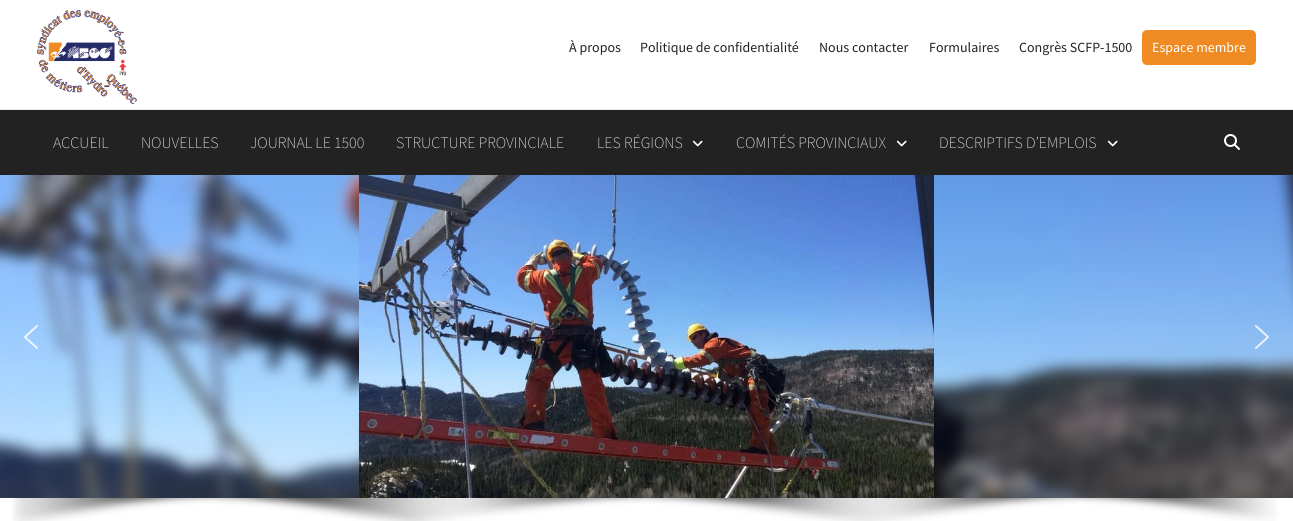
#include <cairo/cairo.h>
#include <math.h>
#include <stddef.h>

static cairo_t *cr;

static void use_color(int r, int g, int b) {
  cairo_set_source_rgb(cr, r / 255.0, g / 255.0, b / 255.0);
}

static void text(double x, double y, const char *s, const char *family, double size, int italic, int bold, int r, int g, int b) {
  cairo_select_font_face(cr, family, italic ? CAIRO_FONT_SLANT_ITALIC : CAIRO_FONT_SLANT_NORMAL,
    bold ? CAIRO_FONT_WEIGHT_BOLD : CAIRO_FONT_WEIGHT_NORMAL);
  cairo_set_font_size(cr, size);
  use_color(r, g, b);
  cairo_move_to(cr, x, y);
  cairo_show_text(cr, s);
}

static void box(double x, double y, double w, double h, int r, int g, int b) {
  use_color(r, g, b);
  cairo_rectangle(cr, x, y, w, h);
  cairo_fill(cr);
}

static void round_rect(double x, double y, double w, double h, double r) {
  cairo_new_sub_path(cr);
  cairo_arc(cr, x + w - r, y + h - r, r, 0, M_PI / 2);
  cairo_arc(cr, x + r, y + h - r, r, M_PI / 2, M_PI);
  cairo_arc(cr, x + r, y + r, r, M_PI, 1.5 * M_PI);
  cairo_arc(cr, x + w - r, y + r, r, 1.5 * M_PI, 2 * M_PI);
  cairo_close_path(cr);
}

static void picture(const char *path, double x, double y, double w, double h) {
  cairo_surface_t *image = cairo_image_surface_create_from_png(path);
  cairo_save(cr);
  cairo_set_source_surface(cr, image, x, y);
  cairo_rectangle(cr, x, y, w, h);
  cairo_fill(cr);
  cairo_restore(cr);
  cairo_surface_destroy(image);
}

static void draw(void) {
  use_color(255, 255, 255);
  cairo_paint(cr);
  box(0, 109, 1293, 1, 238, 238, 238);
  picture("img_01.png", 37, 10, 100, 94);
  use_color(239, 139, 34);
  round_rect(1142, 30, 114, 35, 5);
  cairo_fill(cr);
  box(0, 110, 1293, 65, 34, 34, 34);
  picture("img_02.png", 692, 140, 11, 7);
  picture("img_02.png", 896, 140, 11, 7);
  picture("img_02.png", 1107, 140, 11, 7);
  picture("img_03.png", 1224, 134, 16, 16);
  picture("img_04.png", 0, 175, 1293, 323);
  picture("img_05.png", 359, 175, 575, 323);
  picture("img_06.png", 24, 325, 14, 24);
  picture("img_07.png", 1255, 325, 14, 24);
  picture("img_08.png", 12, 498, 1265, 23);
  text(569, 52, "À propos", "Source Sans Pro", 14, 0, 0, 34, 34, 34);
  text(640, 52, "Politique de confidentialité", "Source Sans Pro", 14, 0, 0, 34, 34, 34);
  text(819, 52, "Nous contacter", "Source Sans Pro", 14, 0, 0, 34, 34, 34);
  text(929, 52, "Formulaires", "Source Sans Pro", 14, 0, 0, 34, 34, 34);
  text(1019, 52, "Congrès SCFP-1500", "Source Sans Pro", 14, 0, 0, 34, 34, 34);
  text(1152, 52, "Espace membre", "Source Sans Pro", 14, 0, 0, 255, 255, 255);
  text(53, 148, "ACCUEIL", "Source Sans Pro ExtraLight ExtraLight", 16, 0, 0, 255, 255, 255);
  text(141, 148, "NOUVELLES", "Source Sans Pro ExtraLight ExtraLight", 16, 0, 0, 255, 255, 255);
  text(250, 148, "JOURNAL LE 1500", "Source Sans Pro ExtraLight ExtraLight", 16, 0, 0, 255, 255, 255);
  text(396, 148, "STRUCTURE PROVINCIALE", "Source Sans Pro ExtraLight ExtraLight", 16, 0, 0, 255, 255, 255);
  text(597, 148, "LES RÉGIONS", "Source Sans Pro ExtraLight ExtraLight", 16, 0, 0, 255, 255, 255);
  text(736, 148, "COMITÉS PROVINCIAUX", "Source Sans Pro ExtraLight ExtraLight", 16, 0, 0, 255, 255, 255);
  text(939, 148, "DESCRIPTIFS D’EMPLOIS", "Source Sans Pro ExtraLight ExtraLight", 16, 0, 0, 255, 255, 255);
}

int main(void) {
  cairo_surface_t *surface = cairo_image_surface_create(CAIRO_FORMAT_RGB24, 1293, 521);
  cr = cairo_create(surface);
  cairo_font_options_t *options = cairo_font_options_create();
  cairo_font_options_set_hint_metrics(options, CAIRO_HINT_METRICS_OFF);
  cairo_font_options_set_hint_style(options, CAIRO_HINT_STYLE_NONE);
  cairo_set_font_options(cr, options);
  cairo_set_miter_limit(cr, 4);
  draw();
  cairo_surface_write_to_png(surface, "out.png");
  cairo_font_options_destroy(options);
  cairo_destroy(cr);
  cairo_surface_destroy(surface);
  return 0;
}
